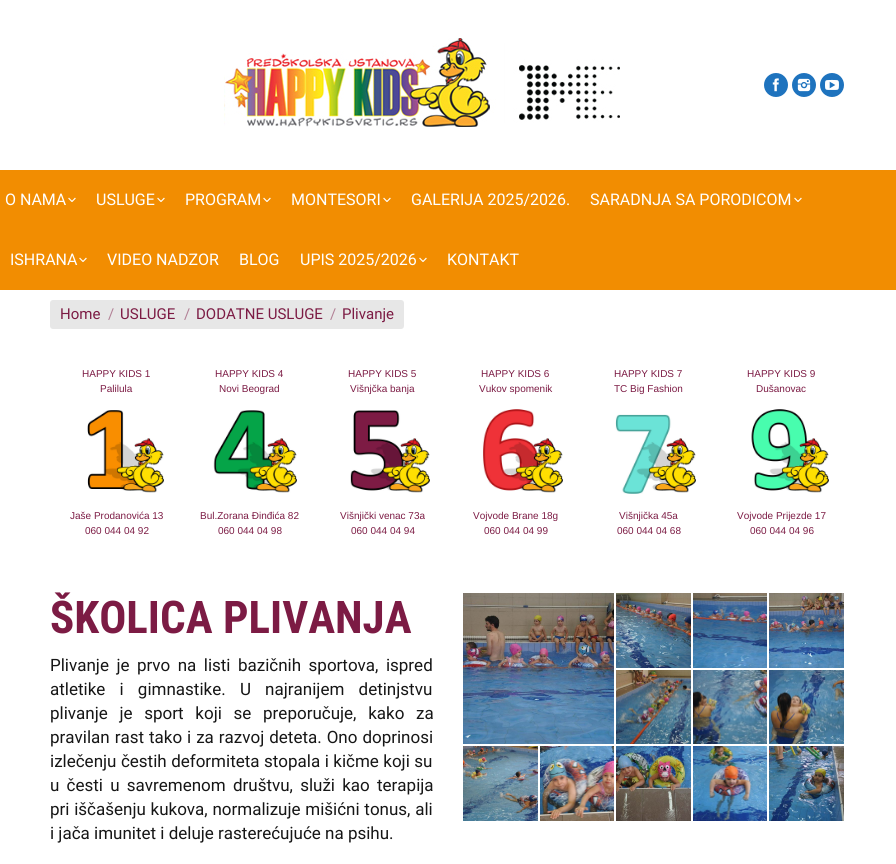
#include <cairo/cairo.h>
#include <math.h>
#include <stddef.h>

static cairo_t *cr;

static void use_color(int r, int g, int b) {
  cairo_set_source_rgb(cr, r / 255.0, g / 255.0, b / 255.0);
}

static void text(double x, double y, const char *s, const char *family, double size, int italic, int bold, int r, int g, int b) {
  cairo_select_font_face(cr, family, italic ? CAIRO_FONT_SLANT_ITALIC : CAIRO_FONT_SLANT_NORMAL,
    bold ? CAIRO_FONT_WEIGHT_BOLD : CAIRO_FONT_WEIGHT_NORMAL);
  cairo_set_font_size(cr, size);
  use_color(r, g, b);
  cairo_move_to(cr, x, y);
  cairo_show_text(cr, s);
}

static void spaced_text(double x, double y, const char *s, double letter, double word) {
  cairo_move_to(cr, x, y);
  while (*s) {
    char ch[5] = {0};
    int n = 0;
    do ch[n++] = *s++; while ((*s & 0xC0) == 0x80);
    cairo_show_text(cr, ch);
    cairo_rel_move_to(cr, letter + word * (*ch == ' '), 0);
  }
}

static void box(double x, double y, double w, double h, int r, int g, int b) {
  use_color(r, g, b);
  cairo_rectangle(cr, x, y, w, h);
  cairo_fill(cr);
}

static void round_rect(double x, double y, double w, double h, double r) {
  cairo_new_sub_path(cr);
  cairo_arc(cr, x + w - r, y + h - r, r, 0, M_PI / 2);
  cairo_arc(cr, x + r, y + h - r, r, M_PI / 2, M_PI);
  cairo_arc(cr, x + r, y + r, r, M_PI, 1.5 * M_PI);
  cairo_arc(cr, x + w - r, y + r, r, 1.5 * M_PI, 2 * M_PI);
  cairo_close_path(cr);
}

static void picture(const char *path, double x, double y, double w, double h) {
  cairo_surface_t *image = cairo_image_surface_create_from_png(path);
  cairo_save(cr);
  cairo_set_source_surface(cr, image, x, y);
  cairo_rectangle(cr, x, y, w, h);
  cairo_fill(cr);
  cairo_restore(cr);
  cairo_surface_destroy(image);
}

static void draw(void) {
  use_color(255, 255, 255);
  cairo_paint(cr);
  picture("img_01.png", 224, 38, 396, 89);
  use_color(30, 115, 190);
  cairo_arc(cr, 776, 85, 12, 0, 2 * M_PI);
  cairo_fill(cr);
  picture("img_02.png", 772, 78, 7, 14);
  cairo_arc(cr, 804, 85, 12, 0, 2 * M_PI);
  cairo_fill(cr);
  picture("img_03.png", 797, 78, 14, 14);
  cairo_arc(cr, 832, 85, 12, 0, 2 * M_PI);
  cairo_fill(cr);
  picture("img_04.png", 825, 79, 14, 11);
  box(0, 170, 896, 120, 242, 141, 1);
  picture("img_05.png", 68, 197, 8, 5);
  picture("img_05.png", 157, 197, 8, 5);
  picture("img_05.png", 263, 197, 8, 5);
  picture("img_05.png", 383, 197, 8, 5);
  picture("img_05.png", 794, 197, 8, 5);
  picture("img_05.png", 79, 257, 8, 5);
  picture("img_05.png", 419, 257, 8, 5);
  use_color(231, 231, 231);
  round_rect(50, 300, 354, 29, 3);
  cairo_fill(cr);
  picture("img_06.png", 87, 410, 77, 83);
  picture("img_07.png", 213, 410, 84, 83);
  picture("img_08.png", 350, 410, 80, 83);
  picture("img_09.png", 482, 409, 81, 84);
  picture("img_10.png", 615, 414, 81, 80);
  picture("img_11.png", 751, 409, 78, 84);
  picture("img_12.png", 463, 593, 151, 151);
  picture("img_13.png", 616, 593, 75, 75);
  picture("img_14.png", 693, 593, 74, 75);
  picture("img_15.png", 769, 593, 75, 75);
  picture("img_16.png", 616, 670, 75, 74);
  picture("img_17.png", 693, 670, 74, 74);
  picture("img_18.png", 769, 670, 75, 74);
  picture("img_19.png", 463, 746, 75, 75);
  picture("img_20.png", 540, 746, 74, 75);
  picture("img_21.png", 616, 746, 75, 75);
  picture("img_22.png", 693, 746, 74, 75);
  picture("img_23.png", 769, 746, 75, 75);
  text(5, 205, "O NAMA", "Roboto", 16, 0, 0, 255, 255, 255);
  text(96, 205, "USLUGE", "Roboto", 16, 0, 0, 255, 255, 255);
  text(185, 205, "PROGRAM", "Roboto", 16, 0, 0, 255, 255, 255);
  text(291, 205, "MONTESORI", "Roboto", 16, 0, 0, 255, 255, 255);
  text(411, 205, "GALERIJA 2025/2026.", "Roboto", 16, 0, 0, 255, 255, 255);
  text(590, 205, "SARADNJA SA PORODICOM", "Roboto", 16, 0, 0, 255, 255, 255);
  text(10, 265, "ISHRANA", "Roboto", 16, 0, 0, 255, 255, 255);
  text(107, 265, "VIDEO NADZOR", "Roboto", 16, 0, 0, 255, 255, 255);
  text(239, 265, "BLOG", "Roboto", 16, 0, 0, 255, 255, 255);
  text(300, 265, "UPIS 2025/2026", "Roboto", 16, 0, 0, 255, 255, 255);
  text(447, 265, "KONTAKT", "Roboto", 16, 0, 0, 255, 255, 255);
  text(60, 319, "Home", "Roboto", 15, 0, 0, 124, 27, 68);
  text(108, 319, "/", "Roboto", 15, 0, 0, 178, 129, 150);
  text(120, 319, "USLUGE", "Roboto", 15, 0, 0, 124, 27, 68);
  text(184, 319, "/", "Roboto", 15, 0, 0, 178, 129, 150);
  text(196, 319, "DODATNE USLUGE", "Roboto", 15, 0, 0, 124, 27, 68);
  text(330, 319, "/", "Roboto", 15, 0, 0, 178, 129, 150);
  text(342, 319, "Plivanje", "Roboto", 15, 0, 0, 124, 27, 68);
  text(82, 377, "HAPPY KIDS 1", "Liberation Sans", 10, 0, 0, 124, 27, 68);
  text(100, 392, "Palilula", "Liberation Sans", 10, 0, 0, 124, 27, 68);
  text(70, 519, "Jaše Prodanovića 13", "Liberation Sans", 10, 0, 0, 124, 27, 68);
  text(85, 534, "060 044 04 92", "Liberation Sans", 10, 0, 0, 124, 27, 68);
  text(215, 377, "HAPPY KIDS 4", "Liberation Sans", 10, 0, 0, 124, 27, 68);
  text(219, 392, "Novi Beograd", "Liberation Sans", 10, 0, 0, 124, 27, 68);
  text(200, 519, "Bul.Zorana Đinđića 82", "Liberation Sans", 10, 0, 0, 124, 27, 68);
  text(218, 534, "060 044 04 98", "Liberation Sans", 10, 0, 0, 124, 27, 68);
  text(348, 377, "HAPPY KIDS 5", "Liberation Sans", 10, 0, 0, 124, 27, 68);
  text(350, 392, "Višnjčka banja", "Liberation Sans", 10, 0, 0, 124, 27, 68);
  text(340, 519, "Višnjički venac 73a", "Liberation Sans", 10, 0, 0, 124, 27, 68);
  text(351, 534, "060 044 04 94", "Liberation Sans", 10, 0, 0, 124, 27, 68);
  text(481, 377, "HAPPY KIDS 6", "Liberation Sans", 10, 0, 0, 124, 27, 68);
  text(479, 392, "Vukov spomenik", "Liberation Sans", 10, 0, 0, 124, 27, 68);
  text(473, 519, "Vojvode Brane 18g", "Liberation Sans", 10, 0, 0, 124, 27, 68);
  text(484, 534, "060 044 04 99", "Liberation Sans", 10, 0, 0, 124, 27, 68);
  text(614, 377, "HAPPY KIDS 7", "Liberation Sans", 10, 0, 0, 124, 27, 68);
  text(614, 392, "TC Big Fashion", "Liberation Sans", 10, 0, 0, 124, 27, 68);
  text(619, 519, "Višnjička 45a", "Liberation Sans", 10, 0, 0, 124, 27, 68);
  text(617, 534, "060 044 04 68", "Liberation Sans", 10, 0, 0, 124, 27, 68);
  text(747, 377, "HAPPY KIDS 9", "Liberation Sans", 10, 0, 0, 124, 27, 68);
  text(756, 392, "Dušanovac", "Liberation Sans", 10, 0, 0, 124, 27, 68);
  text(737, 519, "Vojvode Prijezde 17", "Liberation Sans", 10, 0, 0, 124, 27, 68);
  text(750, 534, "060 044 04 96", "Liberation Sans", 10, 0, 0, 124, 27, 68);
  text(50, 633, "ŠKOLICA PLIVANJA", "Roboto Condensed", 45, 0, 1, 124, 27, 68);
  cairo_select_font_face(cr, "Roboto", CAIRO_FONT_SLANT_NORMAL, CAIRO_FONT_WEIGHT_NORMAL);
  cairo_set_font_size(cr, 17);
  use_color(22, 22, 22);
  spaced_text(50, 671, "Plivanje je prvo na listi bazičnih sportova, ispred", 0, 3.25);
  spaced_text(50, 695, "atletike i gimnastike. U najranijem detinjstvu", 0, 10);
  spaced_text(50, 719, "plivanje je sport koji se preporučuje, kako za", 0, 7.5);
  spaced_text(50, 743, "pravilan rast tako i za razvoj deteta. Ono doprinosi", 0, 0.75);
  spaced_text(50, 767, "izlečenju čestih deformiteta stopala i kičme koji su", 0, 0.25);
  spaced_text(50, 791, "u česti u savremenom društvu, služi kao terapija", 0, 3);
  spaced_text(50, 815, "pri iščašenju kukova, normalizuje mišićni tonus, ali", 0, 0.5);
  text(50, 839, "i jača imunitet i deluje rasterećujuće na psihu.", "Roboto", 17, 0, 0, 22, 22, 22);
}

int main(void) {
  cairo_surface_t *surface = cairo_image_surface_create(CAIRO_FORMAT_RGB24, 896, 864);
  cr = cairo_create(surface);
  cairo_font_options_t *options = cairo_font_options_create();
  cairo_font_options_set_hint_metrics(options, CAIRO_HINT_METRICS_OFF);
  cairo_font_options_set_hint_style(options, CAIRO_HINT_STYLE_NONE);
  cairo_set_font_options(cr, options);
  cairo_set_miter_limit(cr, 4);
  draw();
  cairo_surface_write_to_png(surface, "out.png");
  cairo_font_options_destroy(options);
  cairo_destroy(cr);
  cairo_surface_destroy(surface);
  return 0;
}
